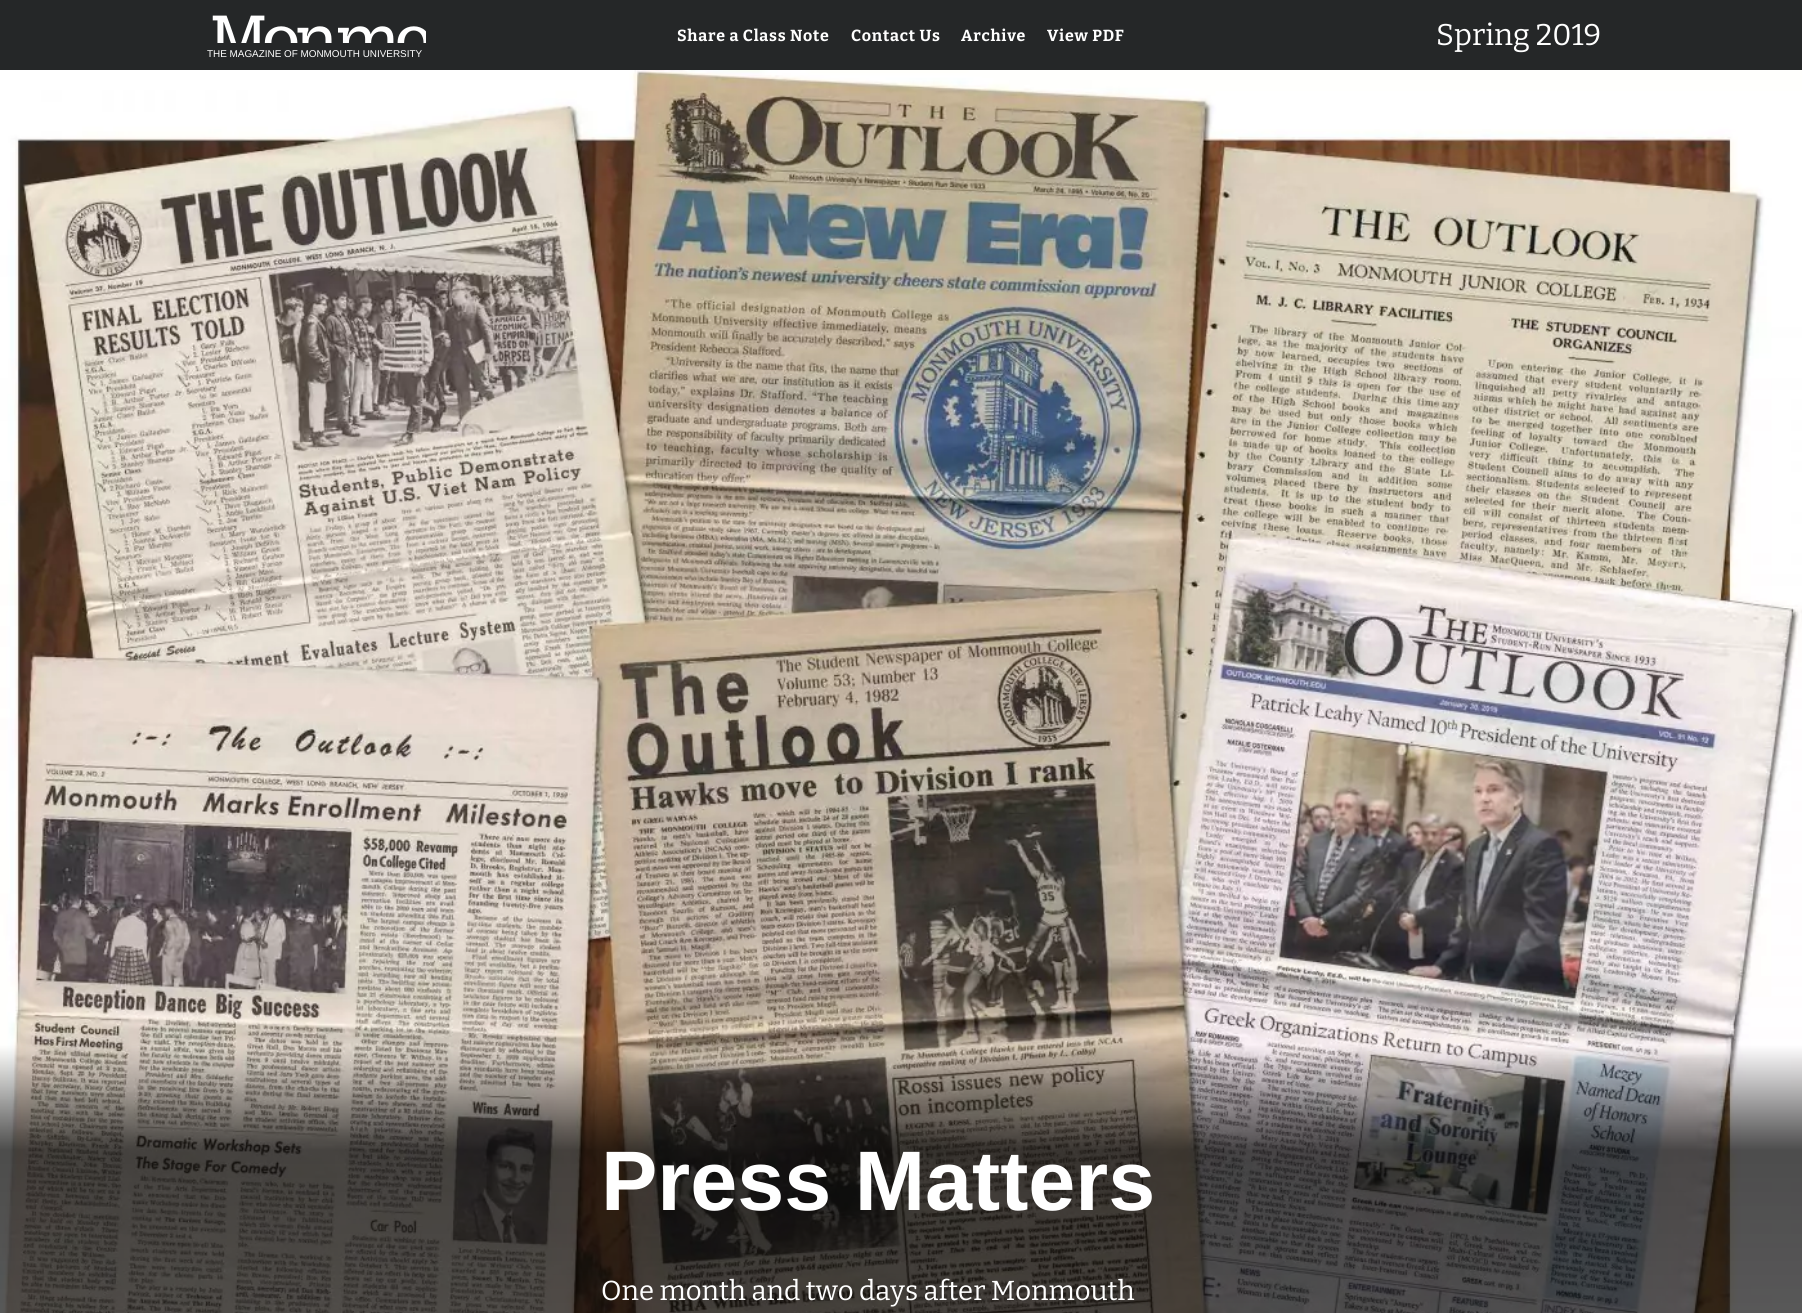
#include <cairo/cairo.h>
#include <math.h>
#include <stddef.h>

static cairo_t *cr;

static void use_color(int r, int g, int b) {
  cairo_set_source_rgb(cr, r / 255.0, g / 255.0, b / 255.0);
}

static void text(double x, double y, const char *s, const char *family, double size, int italic, int bold, int r, int g, int b) {
  cairo_select_font_face(cr, family, italic ? CAIRO_FONT_SLANT_ITALIC : CAIRO_FONT_SLANT_NORMAL,
    bold ? CAIRO_FONT_WEIGHT_BOLD : CAIRO_FONT_WEIGHT_NORMAL);
  cairo_set_font_size(cr, size);
  use_color(r, g, b);
  cairo_move_to(cr, x, y);
  cairo_show_text(cr, s);
}

static void spaced_text(double x, double y, const char *s, double letter, double word) {
  cairo_move_to(cr, x, y);
  while (*s) {
    char ch[5] = {0};
    int n = 0;
    do ch[n++] = *s++; while ((*s & 0xC0) == 0x80);
    cairo_show_text(cr, ch);
    cairo_rel_move_to(cr, letter + word * (*ch == ' '), 0);
  }
}

static void box(double x, double y, double w, double h, int r, int g, int b) {
  use_color(r, g, b);
  cairo_rectangle(cr, x, y, w, h);
  cairo_fill(cr);
}

static void picture(const char *path, double x, double y, double w, double h) {
  cairo_surface_t *image = cairo_image_surface_create_from_png(path);
  cairo_save(cr);
  cairo_set_source_surface(cr, image, x, y);
  cairo_rectangle(cr, x, y, w, h);
  cairo_fill(cr);
  cairo_restore(cr);
  cairo_surface_destroy(image);
}

static void draw(void) {
  use_color(255, 255, 255);
  cairo_paint(cr);
  box(0, 0, 1802, 70, 37, 39, 40);
  picture("img_01.png", 212, 15, 214, 28);
  picture("img_02.png", 0, 70, 1802, 1243);
  cairo_select_font_face(cr, "Bitter", CAIRO_FONT_SLANT_NORMAL, CAIRO_FONT_WEIGHT_BOLD);
  cairo_set_font_size(cr, 16);
  use_color(255, 255, 255);
  spaced_text(677, 41, "Share a Class Note", 0.75, 0);
  spaced_text(851, 41, "Contact Us", 0.75, 0);
  spaced_text(961, 41, "Archive", 0.75, 0);
  spaced_text(1047, 41, "View PDF", 0.75, 0);
  text(1436, 45, "Spring 2019", "Bitter", 30, 0, 0, 255, 255, 255);
  text(207, 57, "THE MAGAZINE OF MONMOUTH UNIVERSITY", "Liberation Sans", 9.9, 0, 0, 255, 255, 255);
  text(601, 1210, "Press Matters", "Liberation Sans", 84.5, 0, 1, 255, 255, 255);
  text(601, 1300, "One month and two days after Monmouth", "Bitter", 27.5, 0, 0, 255, 255, 255);
}

int main(void) {
  cairo_surface_t *surface = cairo_image_surface_create(CAIRO_FORMAT_RGB24, 1802, 1313);
  cr = cairo_create(surface);
  cairo_font_options_t *options = cairo_font_options_create();
  cairo_font_options_set_hint_metrics(options, CAIRO_HINT_METRICS_OFF);
  cairo_font_options_set_hint_style(options, CAIRO_HINT_STYLE_NONE);
  cairo_set_font_options(cr, options);
  cairo_set_miter_limit(cr, 4);
  draw();
  cairo_surface_write_to_png(surface, "out.png");
  cairo_font_options_destroy(options);
  cairo_destroy(cr);
  cairo_surface_destroy(surface);
  return 0;
}
